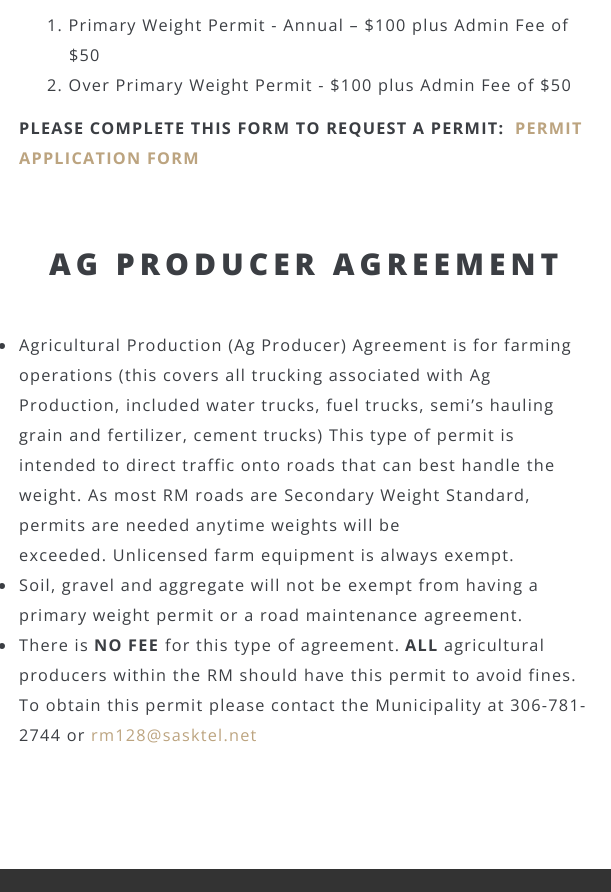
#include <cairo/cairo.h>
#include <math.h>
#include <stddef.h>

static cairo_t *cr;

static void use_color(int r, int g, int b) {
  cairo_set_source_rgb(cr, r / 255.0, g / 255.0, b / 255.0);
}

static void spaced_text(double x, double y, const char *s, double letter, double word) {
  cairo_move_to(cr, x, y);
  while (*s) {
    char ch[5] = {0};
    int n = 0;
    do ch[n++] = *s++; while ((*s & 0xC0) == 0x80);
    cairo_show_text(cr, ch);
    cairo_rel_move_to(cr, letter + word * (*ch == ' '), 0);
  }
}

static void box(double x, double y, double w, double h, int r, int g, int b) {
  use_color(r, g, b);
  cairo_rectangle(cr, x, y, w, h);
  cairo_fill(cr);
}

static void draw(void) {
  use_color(255, 255, 255);
  cairo_paint(cr);
  use_color(59, 62, 67);
  cairo_arc(cr, 2, 346, 3, 0, 2 * M_PI);
  cairo_fill(cr);
  cairo_arc(cr, 2, 586, 3, 0, 2 * M_PI);
  cairo_fill(cr);
  cairo_arc(cr, 2, 646, 3, 0, 2 * M_PI);
  cairo_fill(cr);
  box(0, 869, 611, 23, 51, 51, 51);
  cairo_select_font_face(cr, "Open Sans", CAIRO_FONT_SLANT_NORMAL, CAIRO_FONT_WEIGHT_NORMAL);
  cairo_set_font_size(cr, 16.25);
  use_color(59, 62, 67);
  spaced_text(47, 31, "1. Primary Weight Permit - Annual – $100 plus Admin Fee of", 1.25, 0);
  spaced_text(69, 61, "$50", 1.25, 0);
  spaced_text(47, 91, "2. Over Primary Weight Permit - $100 plus Admin Fee of $50", 1.25, 0);
  cairo_select_font_face(cr, "Open Sans", CAIRO_FONT_SLANT_NORMAL, CAIRO_FONT_WEIGHT_BOLD);
  spaced_text(19, 134, "PLEASE COMPLETE THIS FORM TO REQUEST A PERMIT:", 1.25, 0);
  use_color(188, 164, 128);
  spaced_text(515, 134, "PERMIT", 1.25, 0);
  spaced_text(19, 164, "APPLICATION FORM", 1.25, 0);
  cairo_select_font_face(cr, "Open Sans ExtraBold", CAIRO_FONT_SLANT_NORMAL, CAIRO_FONT_WEIGHT_NORMAL);
  cairo_set_font_size(cr, 30);
  use_color(59, 62, 67);
  spaced_text(49, 275, "AG PRODUCER AGREEMENT", 5, 0);
  cairo_select_font_face(cr, "Open Sans", CAIRO_FONT_SLANT_NORMAL, CAIRO_FONT_WEIGHT_NORMAL);
  cairo_set_font_size(cr, 16.25);
  spaced_text(19, 351, "Agricultural Production (Ag Producer) Agreement is for farming", 1.25, 0);
  spaced_text(19, 381, "operations (this covers all trucking associated with Ag", 1.25, 0);
  spaced_text(19, 411, "Production, included water trucks, fuel trucks, semi’s hauling", 1.25, 0);
  spaced_text(19, 441, "grain and fertilizer, cement trucks) This type of permit is", 1.25, 0);
  spaced_text(19, 471, "intended to direct traffic onto roads that can best handle the", 1.25, 0);
  spaced_text(19, 501, "weight. As most RM roads are Secondary Weight Standard,", 1.25, 0);
  spaced_text(19, 531, "permits are needed anytime weights will be", 1.25, 0);
  spaced_text(19, 561, "exceeded. Unlicensed farm equipment is always exempt.", 1.25, 0);
  spaced_text(19, 591, "Soil, gravel and aggregate will not be exempt from having a", 1.25, 0);
  spaced_text(19, 621, "primary weight permit or a road maintenance agreement.", 1.25, 0);
  spaced_text(19, 651, "There is", 1.25, 0);
  cairo_select_font_face(cr, "Open Sans", CAIRO_FONT_SLANT_NORMAL, CAIRO_FONT_WEIGHT_BOLD);
  spaced_text(94, 651, "NO FEE", 1.25, 0);
  cairo_select_font_face(cr, "Open Sans", CAIRO_FONT_SLANT_NORMAL, CAIRO_FONT_WEIGHT_NORMAL);
  spaced_text(165, 651, "for this type of agreement.", 1.25, 0);
  cairo_select_font_face(cr, "Open Sans", CAIRO_FONT_SLANT_NORMAL, CAIRO_FONT_WEIGHT_BOLD);
  spaced_text(405, 651, "ALL", 1.25, 0);
  cairo_select_font_face(cr, "Open Sans", CAIRO_FONT_SLANT_NORMAL, CAIRO_FONT_WEIGHT_NORMAL);
  spaced_text(444, 651, "agricultural", 1.25, 0);
  spaced_text(19, 681, "producers within the RM should have this permit to avoid fines.", 1.25, 0);
  spaced_text(19, 711, "To obtain this permit please contact the Municipality at 306-781-", 1.25, 0);
  spaced_text(19, 741, "2744 or", 1.25, 0);
  use_color(188, 164, 128);
  spaced_text(91, 741, "rm128@sasktel.net", 1.25, 0);
}

int main(void) {
  cairo_surface_t *surface = cairo_image_surface_create(CAIRO_FORMAT_RGB24, 611, 892);
  cr = cairo_create(surface);
  cairo_font_options_t *options = cairo_font_options_create();
  cairo_font_options_set_hint_metrics(options, CAIRO_HINT_METRICS_OFF);
  cairo_font_options_set_hint_style(options, CAIRO_HINT_STYLE_NONE);
  cairo_set_font_options(cr, options);
  cairo_set_miter_limit(cr, 4);
  draw();
  cairo_surface_write_to_png(surface, "out.png");
  cairo_font_options_destroy(options);
  cairo_destroy(cr);
  cairo_surface_destroy(surface);
  return 0;
}
